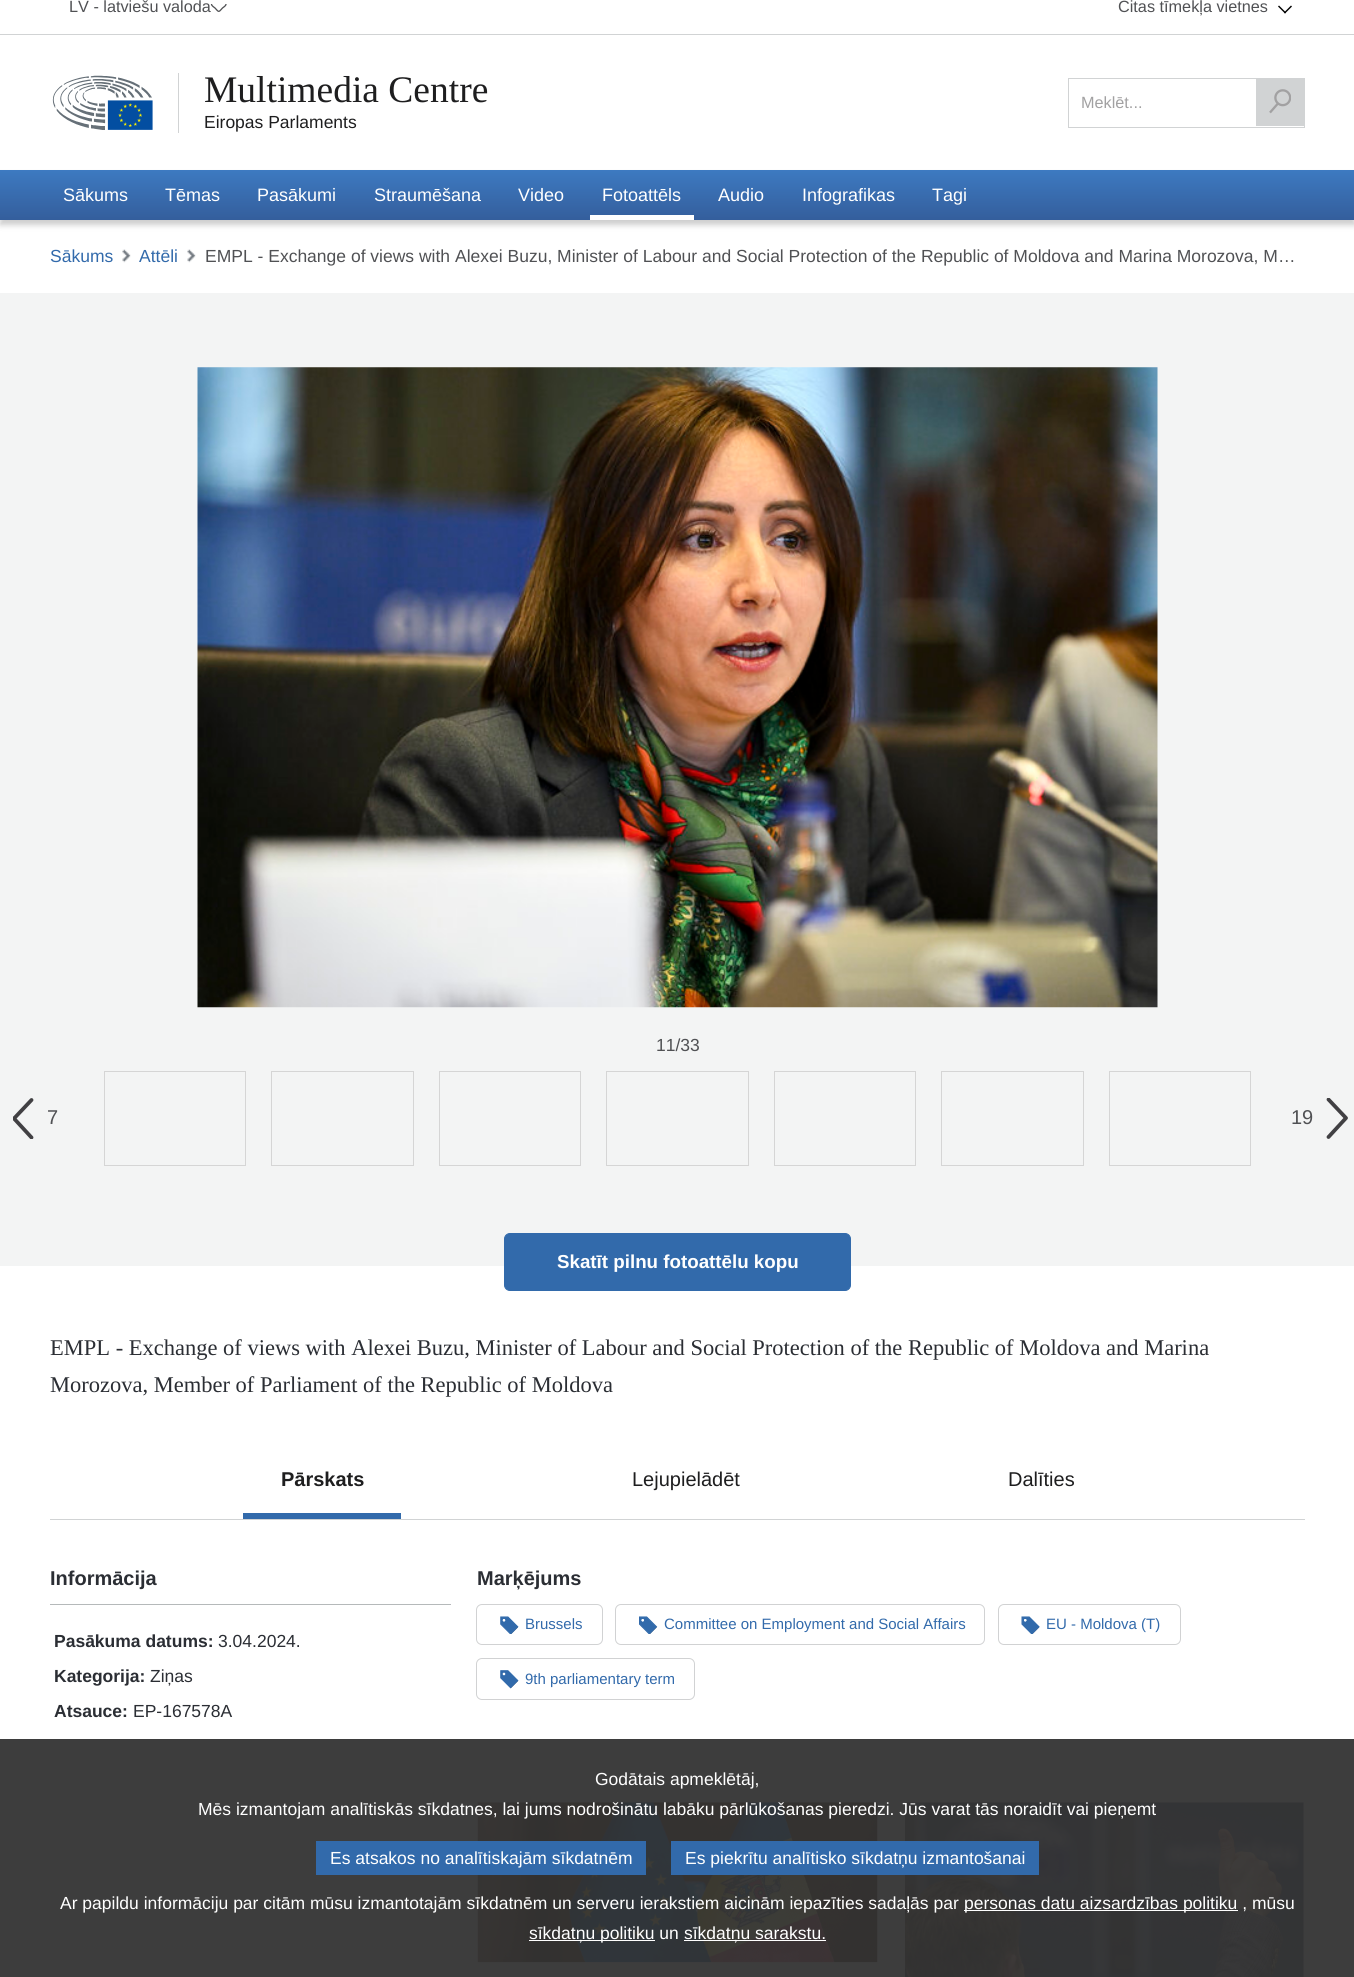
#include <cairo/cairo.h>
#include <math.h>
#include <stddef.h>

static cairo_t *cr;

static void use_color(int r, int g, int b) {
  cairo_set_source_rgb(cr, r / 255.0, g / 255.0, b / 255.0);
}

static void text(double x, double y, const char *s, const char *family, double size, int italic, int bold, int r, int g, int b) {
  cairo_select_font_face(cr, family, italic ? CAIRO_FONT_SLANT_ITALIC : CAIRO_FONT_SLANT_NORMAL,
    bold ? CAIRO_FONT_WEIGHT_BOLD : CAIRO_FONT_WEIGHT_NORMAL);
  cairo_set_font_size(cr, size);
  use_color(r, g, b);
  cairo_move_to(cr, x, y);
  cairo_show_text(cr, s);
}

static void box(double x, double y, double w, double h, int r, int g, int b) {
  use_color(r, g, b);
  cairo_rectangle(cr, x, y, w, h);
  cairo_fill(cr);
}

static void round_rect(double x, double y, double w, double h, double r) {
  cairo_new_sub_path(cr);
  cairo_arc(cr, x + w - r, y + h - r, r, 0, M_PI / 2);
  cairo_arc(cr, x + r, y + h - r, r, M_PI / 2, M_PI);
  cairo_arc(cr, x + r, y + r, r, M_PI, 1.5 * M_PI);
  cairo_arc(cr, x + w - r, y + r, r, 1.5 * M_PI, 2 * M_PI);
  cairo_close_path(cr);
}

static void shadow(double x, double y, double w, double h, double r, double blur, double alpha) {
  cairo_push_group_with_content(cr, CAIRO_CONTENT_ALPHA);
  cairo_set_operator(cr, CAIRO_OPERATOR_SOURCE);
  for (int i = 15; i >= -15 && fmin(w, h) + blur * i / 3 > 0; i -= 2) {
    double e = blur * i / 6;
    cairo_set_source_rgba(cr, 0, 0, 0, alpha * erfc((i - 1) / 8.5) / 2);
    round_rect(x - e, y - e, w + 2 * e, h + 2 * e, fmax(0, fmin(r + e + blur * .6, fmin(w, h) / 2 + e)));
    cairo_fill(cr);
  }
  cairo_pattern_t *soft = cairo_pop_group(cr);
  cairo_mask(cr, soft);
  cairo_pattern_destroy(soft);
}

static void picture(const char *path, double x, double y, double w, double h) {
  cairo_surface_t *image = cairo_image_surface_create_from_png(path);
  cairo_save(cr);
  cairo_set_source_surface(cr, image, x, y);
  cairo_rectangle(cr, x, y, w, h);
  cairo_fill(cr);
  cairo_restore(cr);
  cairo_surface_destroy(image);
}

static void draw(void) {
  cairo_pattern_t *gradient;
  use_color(255, 255, 255);
  cairo_paint(cr);
  box(0, 1739, 1354, 238, 61, 61, 61);
  box(0, 34, 1354, 1, 209, 211, 212);
  cairo_new_path(cr);
  cairo_move_to(cr, 226, 4);
  cairo_curve_to(cr, 226, 6, 223.5, 7, 222.5, 8);
  cairo_curve_to(cr, 218.5, 12.5, 219, 12.5, 215, 8);
  cairo_curve_to(cr, 214, 7, 211.5, 6, 211.5, 4);
  use_color(80, 81, 84);
  cairo_set_line_width(cr, 1.3);
  cairo_stroke(cr);
  use_color(0, 0, 0);
  cairo_new_path(cr);
  cairo_move_to(cr, 1291, 5.5);
  cairo_line_to(cr, 1292, 6.5);
  cairo_line_to(cr, 1285, 13.5);
  cairo_line_to(cr, 1284, 12.5);
  cairo_close_path(cr);
  cairo_fill(cr);
  cairo_new_path(cr);
  cairo_move_to(cr, 1279, 5.5);
  cairo_line_to(cr, 1286, 12.5);
  cairo_line_to(cr, 1285, 13.5);
  cairo_line_to(cr, 1278, 6.5);
  cairo_close_path(cr);
  cairo_fill(cr);
  picture("img_01.png", 52, 75, 101, 55);
  box(178, 73, 1, 60, 209, 211, 212);
  cairo_rectangle(cr, 1068.5, 78.5, 236, 49);
  cairo_set_line_width(cr, 1);
  cairo_stroke(cr);
  box(1256, 79, 48, 47, 209, 211, 212);
  picture("img_02.png", 1269, 89, 22, 25);
  use_color(0, 0, 0);
  shadow(0, 175, 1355, 50, 0, 3, 0.2);
  gradient = cairo_pattern_create_linear(678, 170, 678, 220);
  cairo_pattern_add_color_stop_rgba(gradient, 0, 0.239, 0.478, 0.757, 1);
  cairo_pattern_add_color_stop_rgba(gradient, 1, 0.204, 0.369, 0.612, 1);
  cairo_set_source(cr, gradient);
  cairo_pattern_destroy(gradient);
  cairo_rectangle(cr, 0, 170, 1354, 50);
  cairo_fill(cr);
  box(590, 215, 104, 5, 255, 255, 255);
  picture("img_03.png", 122, 249, 9, 14);
  picture("img_03.png", 187, 249, 9, 14);
  box(0, 293, 1354, 973, 243, 244, 244);
  picture("img_04.png", 197, 367, 961, 641);
  cairo_save(cr);
  cairo_rectangle(cr, 13, 1098, 22, 41);
  cairo_clip(cr);
  cairo_new_path(cr);
  cairo_move_to(cr, 31.5, 1100);
  cairo_line_to(cr, 14, 1118.5);
  cairo_line_to(cr, 31.5, 1137.5);
  use_color(65, 64, 67);
  cairo_set_line_width(cr, 3.8);
  cairo_set_line_cap(cr, CAIRO_LINE_CAP_ROUND);
  cairo_set_line_join(cr, CAIRO_LINE_JOIN_ROUND);
  cairo_stroke(cr);
  cairo_restore(cr);
  cairo_rectangle(cr, 104.5, 1071.5, 141, 94);
  use_color(213, 213, 213);
  cairo_stroke(cr);
  cairo_rectangle(cr, 271.5, 1071.5, 142, 94);
  cairo_stroke(cr);
  cairo_rectangle(cr, 439.5, 1071.5, 141, 94);
  cairo_stroke(cr);
  cairo_rectangle(cr, 606.5, 1071.5, 142, 94);
  cairo_stroke(cr);
  cairo_rectangle(cr, 774.5, 1071.5, 141, 94);
  cairo_stroke(cr);
  cairo_rectangle(cr, 941.5, 1071.5, 142, 94);
  cairo_stroke(cr);
  cairo_rectangle(cr, 1109.5, 1071.5, 141, 94);
  cairo_stroke(cr);
  cairo_save(cr);
  cairo_rectangle(cr, 1326, 1098, 23, 41);
  cairo_clip(cr);
  cairo_new_path(cr);
  cairo_move_to(cr, 1328.5, 1137);
  cairo_line_to(cr, 1346, 1118);
  cairo_line_to(cr, 1328.5, 1099.5);
  use_color(65, 64, 67);
  cairo_set_line_width(cr, 3.8);
  cairo_set_line_cap(cr, CAIRO_LINE_CAP_ROUND);
  cairo_set_line_join(cr, CAIRO_LINE_JOIN_ROUND);
  cairo_stroke(cr);
  cairo_restore(cr);
  use_color(50, 106, 171);
  round_rect(504.5, 1233.5, 346, 57, 5.5);
  cairo_fill_preserve(cr);
  cairo_stroke(cr);
  box(50, 1519, 1255, 1, 209, 211, 212);
  box(243, 1513, 158, 6, 50, 106, 171);
  box(50, 1604, 401, 1, 181, 185, 186);
  round_rect(476.5, 1604.5, 126, 40, 5.5);
  use_color(209, 210, 211);
  cairo_stroke(cr);
  picture("img_05.png", 500, 1616, 19, 18);
  round_rect(615.5, 1604.5, 369, 40, 5.5);
  cairo_stroke(cr);
  picture("img_06.png", 639, 1616, 19, 18);
  round_rect(998.5, 1604.5, 182, 40, 5.5);
  cairo_stroke(cr);
  picture("img_07.png", 1021, 1616, 19, 18);
  round_rect(476.5, 1658.5, 218, 41, 5.5);
  cairo_stroke(cr);
  picture("img_08.png", 500, 1670, 19, 19);
  picture("img_09.png", 477, 1802, 401, 161);
  picture("img_10.png", 905, 1802, 399, 175);
  box(316, 1841, 330, 34, 50, 106, 171);
  box(671, 1841, 368, 34, 50, 106, 171);
  box(964, 1910, 274, 1, 255, 255, 255);
  box(529, 1940, 126, 1, 255, 255, 255);
  box(684, 1940, 142, 1, 255, 255, 255);
  text(69, 12, "LV - latviešu valoda", "Liberation Sans", 16.25, 0, 0, 80, 81, 84);
  text(1118, 12, "Citas tīmekļa vietnes", "Liberation Sans", 16.25, 0, 0, 80, 81, 84);
  text(204, 102, "Multimedia Centre", "Liberation Serif", 37.5, 0, 0, 30, 30, 31);
  text(204, 128, "Eiropas Parlaments", "Liberation Sans", 17.5, 0, 0, 30, 30, 31);
  text(1081, 108, "Meklēt...", "Liberation Sans", 16.25, 0, 0, 162, 161, 162);
  text(63, 201, "Sākums", "Liberation Sans", 18, 0, 0, 255, 255, 255);
  text(165, 201, "Tēmas", "Liberation Sans", 18, 0, 0, 255, 255, 255);
  text(257, 201, "Pasākumi", "Liberation Sans", 18, 0, 0, 255, 255, 255);
  text(374, 201, "Straumēšana", "Liberation Sans", 18, 0, 0, 255, 255, 255);
  text(518, 201, "Video", "Liberation Sans", 18, 0, 0, 255, 255, 255);
  text(602, 201, "Fotoattēls", "Liberation Sans", 18, 0, 0, 255, 255, 255);
  text(718, 201, "Audio", "Liberation Sans", 18, 0, 0, 255, 255, 255);
  text(802, 201, "Infografikas", "Liberation Sans", 18, 0, 0, 255, 255, 255);
  text(932, 201, "Tagi", "Liberation Sans", 18, 0, 0, 255, 255, 255);
  text(50, 262, "Sākums", "Liberation Sans", 17.5, 0, 0, 50, 106, 171);
  text(139, 262, "Attēli", "Liberation Sans", 17.5, 0, 0, 50, 106, 171);
  text(205, 262, "EMPL - Exchange of views with Alexei Buzu, Minister of Labour and Social Protection of the Republic of Moldova and Marina Morozova, M…", "Liberation Sans", 17.5, 0, 0, 80, 81, 84);
  text(656, 1051, "11/33", "Liberation Sans", 17.5, 0, 0, 80, 81, 84);
  text(47, 1124, "7", "Liberation Sans", 20, 0, 0, 80, 81, 84);
  text(1291, 1124, "19", "Liberation Sans", 20, 0, 0, 80, 81, 84);
  text(557, 1268, "Skatīt pilnu fotoattēlu kopu", "Liberation Sans", 18.75, 0, 1, 255, 255, 255);
  text(50, 1355, "EMPL - Exchange of views with Alexei Buzu, Minister of Labour and Social Protection of the Republic of Moldova and Marina", "Liberation Serif", 22.5, 0, 0, 43, 46, 52);
  text(50, 1392, "Morozova, Member of Parliament of the Republic of Moldova", "Liberation Serif", 22.5, 0, 0, 43, 46, 52);
  text(281, 1486, "Pārskats", "Liberation Sans", 20, 0, 1, 30, 30, 31);
  text(632, 1486, "Lejupielādēt", "Liberation Sans", 20, 0, 0, 30, 30, 31);
  text(1008, 1486, "Dalīties", "Liberation Sans", 20, 0, 0, 30, 30, 31);
  text(50, 1585, "Informācija", "Liberation Sans", 20, 0, 1, 43, 46, 52);
  text(54, 1647, "Pasākuma datums:", "Liberation Sans", 17.5, 0, 1, 43, 46, 52);
  text(218, 1647, "3.04.2024.", "Liberation Sans", 17.5, 0, 0, 43, 46, 52);
  text(54, 1682, "Kategorija:", "Liberation Sans", 17.5, 0, 1, 43, 46, 52);
  text(150, 1682, "Ziņas", "Liberation Sans", 17.5, 0, 0, 43, 46, 52);
  text(54, 1717, "Atsauce:", "Liberation Sans", 17.5, 0, 1, 43, 46, 52);
  text(133, 1717, "EP-167578A", "Liberation Sans", 17.5, 0, 0, 43, 46, 52);
  text(477, 1585, "Marķējums", "Liberation Sans", 20, 0, 1, 43, 46, 52);
  text(525, 1629, "Brussels", "Liberation Sans", 15, 0, 0, 50, 106, 171);
  text(664, 1629, "Committee on Employment and Social Affairs", "Liberation Sans", 15, 0, 0, 50, 106, 171);
  text(1046, 1629, "EU - Moldova (T)", "Liberation Sans", 15, 0, 0, 50, 106, 171);
  text(525, 1684, "9th parliamentary term", "Liberation Sans", 15, 0, 0, 50, 106, 171);
  text(595, 1785, "Godātais apmeklētāj,", "Liberation Sans", 17.5, 0, 0, 255, 255, 255);
  text(198, 1815, "Mēs izmantojam analītiskās sīkdatnes, lai jums nodrošinātu labāku pārlūkošanas pieredzi. Jūs varat tās noraidīt vai pieņemt", "Liberation Sans", 17.5, 0, 0, 255, 255, 255);
  text(330, 1864, "Es atsakos no analītiskajām sīkdatnēm", "Liberation Sans", 17.5, 0, 0, 255, 255, 255);
  text(685, 1864, "Es piekrītu analītisko sīkdatņu izmantošanai", "Liberation Sans", 17.5, 0, 0, 255, 255, 255);
  text(60, 1909, "Ar papildu informāciju par citām mūsu izmantotajām sīkdatnēm un serveru ierakstiem aicinām iepazīties sadaļās par", "Liberation Sans", 17.5, 0, 0, 255, 255, 255);
  text(964, 1909, "personas datu aizsardzības politiku , mūsu", "Liberation Sans", 17.5, 0, 0, 255, 255, 255);
  text(529, 1939, "sīkdatņu politiku un", "Liberation Sans", 17.5, 0, 0, 255, 255, 255);
  text(684, 1939, "sīkdatņu sarakstu.", "Liberation Sans", 17.5, 0, 0, 255, 255, 255);
}

int main(void) {
  cairo_surface_t *surface = cairo_image_surface_create(CAIRO_FORMAT_RGB24, 1354, 1977);
  cr = cairo_create(surface);
  cairo_font_options_t *options = cairo_font_options_create();
  cairo_font_options_set_hint_metrics(options, CAIRO_HINT_METRICS_OFF);
  cairo_font_options_set_hint_style(options, CAIRO_HINT_STYLE_NONE);
  cairo_set_font_options(cr, options);
  cairo_set_miter_limit(cr, 4);
  draw();
  cairo_surface_write_to_png(surface, "out.png");
  cairo_font_options_destroy(options);
  cairo_destroy(cr);
  cairo_surface_destroy(surface);
  return 0;
}
